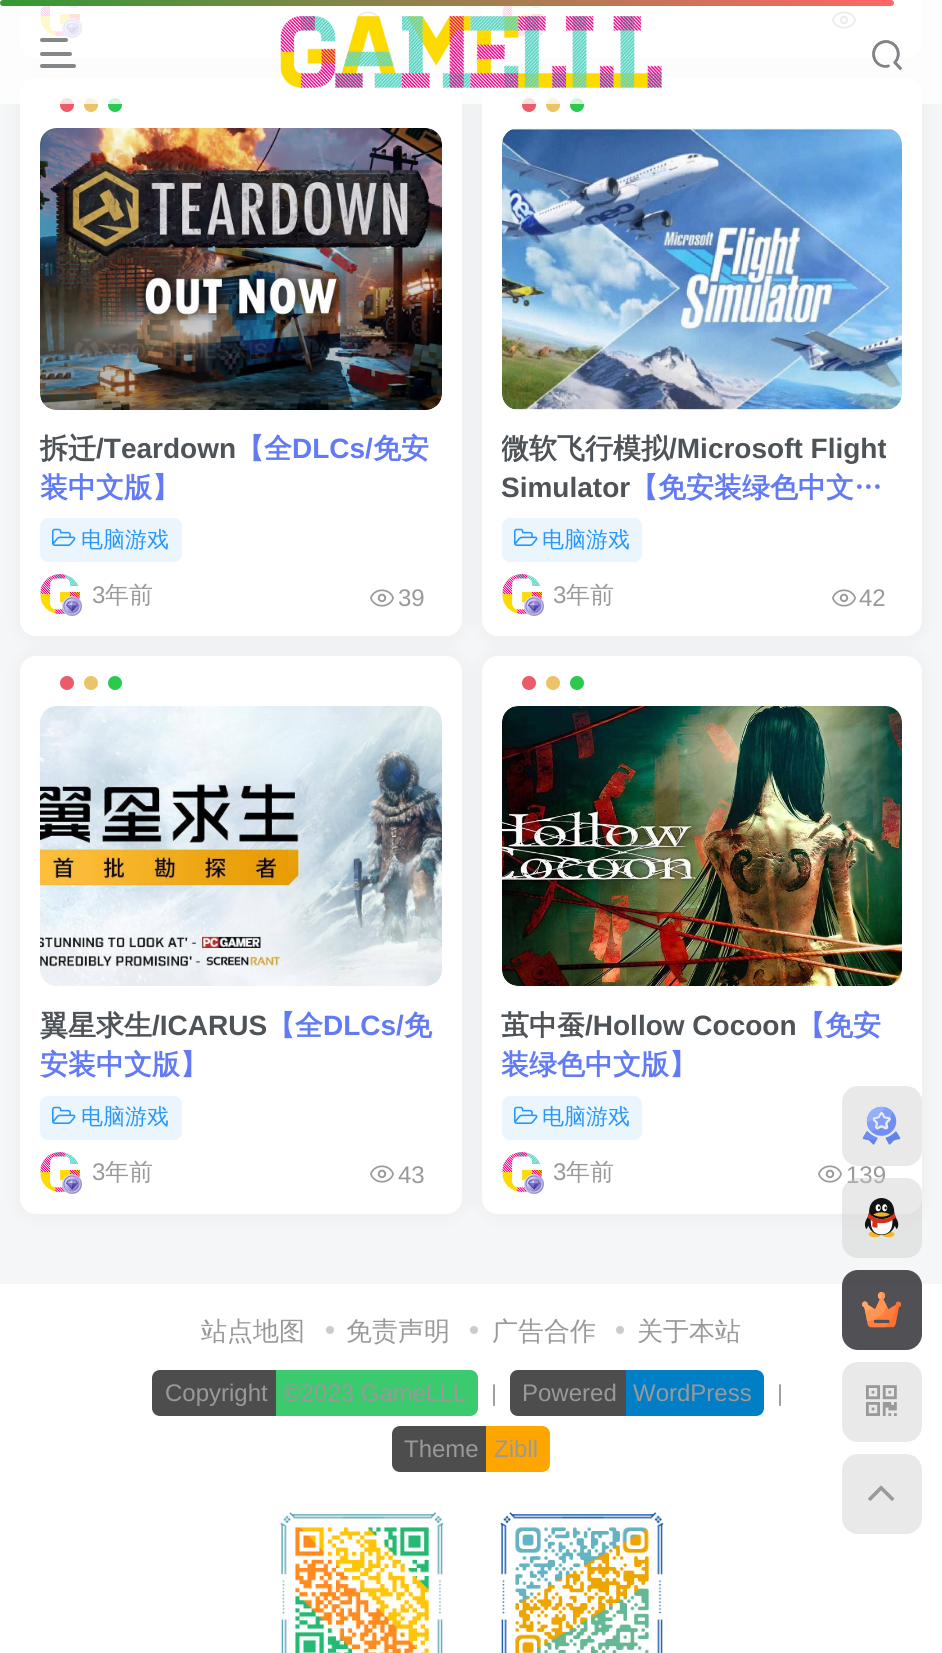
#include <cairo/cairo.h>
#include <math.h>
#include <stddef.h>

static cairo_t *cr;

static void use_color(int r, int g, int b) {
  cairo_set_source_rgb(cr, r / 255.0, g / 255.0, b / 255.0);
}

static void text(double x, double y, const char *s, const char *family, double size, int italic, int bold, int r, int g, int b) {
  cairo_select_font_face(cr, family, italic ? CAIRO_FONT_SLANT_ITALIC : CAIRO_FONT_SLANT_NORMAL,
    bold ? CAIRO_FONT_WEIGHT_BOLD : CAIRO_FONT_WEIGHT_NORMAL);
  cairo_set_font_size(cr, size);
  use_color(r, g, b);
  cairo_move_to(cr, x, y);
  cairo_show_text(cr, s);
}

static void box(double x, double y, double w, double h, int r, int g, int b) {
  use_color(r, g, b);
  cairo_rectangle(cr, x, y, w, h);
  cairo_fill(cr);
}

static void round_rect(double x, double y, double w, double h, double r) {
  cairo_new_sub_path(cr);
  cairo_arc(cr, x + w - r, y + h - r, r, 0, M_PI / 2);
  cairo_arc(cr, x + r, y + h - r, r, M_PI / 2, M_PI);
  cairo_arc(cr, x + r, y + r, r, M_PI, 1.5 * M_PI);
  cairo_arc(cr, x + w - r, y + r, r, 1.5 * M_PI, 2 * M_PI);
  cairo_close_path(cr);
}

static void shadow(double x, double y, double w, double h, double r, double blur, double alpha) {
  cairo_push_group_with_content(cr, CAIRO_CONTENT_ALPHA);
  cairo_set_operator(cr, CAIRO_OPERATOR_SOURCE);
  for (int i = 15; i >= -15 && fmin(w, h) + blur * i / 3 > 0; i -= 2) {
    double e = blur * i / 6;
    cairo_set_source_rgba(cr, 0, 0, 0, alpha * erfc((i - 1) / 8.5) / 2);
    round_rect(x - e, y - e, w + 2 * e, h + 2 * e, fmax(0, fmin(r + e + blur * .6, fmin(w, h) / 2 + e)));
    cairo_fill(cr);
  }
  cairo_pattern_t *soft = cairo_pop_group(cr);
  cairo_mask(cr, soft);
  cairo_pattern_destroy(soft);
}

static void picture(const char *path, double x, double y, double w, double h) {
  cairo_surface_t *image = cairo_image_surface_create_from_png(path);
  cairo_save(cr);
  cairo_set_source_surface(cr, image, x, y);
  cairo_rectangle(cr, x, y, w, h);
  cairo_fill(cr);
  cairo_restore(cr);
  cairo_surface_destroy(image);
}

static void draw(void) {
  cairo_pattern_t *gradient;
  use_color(245, 246, 247);
  cairo_paint(cr);
  use_color(116, 116, 116);
  shadow(20, -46, 442, 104, 16, 10, 0.08);
  use_color(255, 255, 255);
  round_rect(20, -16, 442, 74, 16);
  cairo_fill(cr);
  picture("img_03.png", 40, 6, 40, 30);
  picture("img_04.png", 62, 18, 20, 20);
  picture("img_05.png", 356, 11, 24, 12);
  use_color(116, 116, 116);
  shadow(482, -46, 440, 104, 16, 10, 0.08);
  use_color(255, 255, 255);
  round_rect(482, -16, 440, 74, 16);
  cairo_fill(cr);
  picture("img_06.png", 502, 6, 40, 30);
  picture("img_07.png", 524, 30, 20, 8);
  picture("img_08.png", 832, 11, 24, 18);
  use_color(116, 116, 116);
  shadow(20, 78, 442, 558, 16, 10, 0.08);
  use_color(255, 255, 255);
  round_rect(20, 78, 442, 558, 16);
  cairo_fill(cr);
  use_color(234, 92, 106);
  cairo_arc(cr, 67, 105, 7, 0, 2 * M_PI);
  cairo_fill(cr);
  use_color(236, 196, 104);
  cairo_arc(cr, 91, 105, 7, 0, 2 * M_PI);
  cairo_fill(cr);
  use_color(43, 201, 80);
  cairo_arc(cr, 115, 105, 7, 0, 2 * M_PI);
  cairo_fill(cr);
  use_color(116, 116, 116);
  shadow(482, 78, 440, 558, 16, 10, 0.08);
  use_color(255, 255, 255);
  round_rect(482, 78, 440, 558, 16);
  cairo_fill(cr);
  use_color(234, 92, 106);
  cairo_arc(cr, 529, 105, 7, 0, 2 * M_PI);
  cairo_fill(cr);
  use_color(236, 196, 104);
  cairo_arc(cr, 553, 105, 7, 0, 2 * M_PI);
  cairo_fill(cr);
  use_color(43, 201, 80);
  cairo_arc(cr, 577, 105, 7, 0, 2 * M_PI);
  cairo_fill(cr);
  cairo_set_source_rgba(cr, 1, 1, 1, 0.8);
  cairo_rectangle(cr, 0, 0, 942, 104);
  cairo_fill(cr);
  gradient = cairo_pattern_create_linear(0, 3, 894, 3);
  cairo_pattern_add_color_stop_rgba(gradient, 0, 0.2, 0.6, 0.2, 1);
  cairo_pattern_add_color_stop_rgba(gradient, 1, 1, 0.4, 0.4, 1);
  cairo_set_source(cr, gradient);
  cairo_pattern_destroy(gradient);
  round_rect(0, 0, 894, 6, 3);
  cairo_fill(cr);
  use_color(131, 135, 138);
  round_rect(40, 38, 28, 4, 2);
  cairo_fill(cr);
  round_rect(40, 52, 32, 4, 2);
  cairo_fill(cr);
  use_color(130, 134, 137);
  round_rect(40, 64, 36, 4, 2);
  cairo_fill(cr);
  picture("img_01.png", 280, 16, 382, 72);
  picture("img_02.png", 872, 40, 30, 30);
  picture("img_09.png", 40, 128, 402, 282);
  use_color(234, 245, 254);
  round_rect(40, 518, 142, 44, 8);
  cairo_fill(cr);
  picture("img_10.png", 52, 528, 24, 18);
  picture("img_11.png", 40, 574, 40, 40);
  picture("img_04.png", 62, 596, 20, 20);
  picture("img_08.png", 370, 589, 24, 18);
  picture("img_12.png", 502, 128, 400, 282);
  round_rect(502, 518, 140, 44, 8);
  cairo_fill(cr);
  picture("img_10.png", 514, 528, 24, 18);
  picture("img_13.png", 502, 574, 40, 40);
  picture("img_14.png", 524, 596, 20, 20);
  picture("img_08.png", 832, 589, 24, 18);
  use_color(116, 116, 116);
  shadow(20, 656, 442, 558, 16, 10, 0.08);
  use_color(255, 255, 255);
  round_rect(20, 656, 442, 558, 16);
  cairo_fill(cr);
  use_color(234, 92, 106);
  cairo_arc(cr, 67, 683, 7, 0, 2 * M_PI);
  cairo_fill(cr);
  use_color(236, 196, 104);
  cairo_arc(cr, 91, 683, 7, 0, 2 * M_PI);
  cairo_fill(cr);
  use_color(43, 201, 80);
  cairo_arc(cr, 115, 683, 7, 0, 2 * M_PI);
  cairo_fill(cr);
  picture("img_15.png", 40, 706, 402, 280);
  use_color(234, 245, 254);
  round_rect(40, 1096, 142, 44, 8);
  cairo_fill(cr);
  picture("img_10.png", 52, 1106, 24, 18);
  picture("img_11.png", 40, 1152, 40, 40);
  picture("img_04.png", 62, 1174, 20, 20);
  picture("img_08.png", 370, 1165, 24, 18);
  use_color(116, 116, 116);
  shadow(482, 656, 440, 558, 16, 10, 0.08);
  use_color(255, 255, 255);
  round_rect(482, 656, 440, 558, 16);
  cairo_fill(cr);
  use_color(234, 92, 106);
  cairo_arc(cr, 529, 683, 7, 0, 2 * M_PI);
  cairo_fill(cr);
  use_color(236, 196, 104);
  cairo_arc(cr, 553, 683, 7, 0, 2 * M_PI);
  cairo_fill(cr);
  use_color(43, 201, 80);
  cairo_arc(cr, 577, 683, 7, 0, 2 * M_PI);
  cairo_fill(cr);
  picture("img_16.png", 502, 706, 400, 280);
  use_color(234, 245, 254);
  round_rect(502, 1096, 140, 44, 8);
  cairo_fill(cr);
  picture("img_10.png", 514, 1106, 24, 18);
  picture("img_13.png", 502, 1152, 40, 40);
  picture("img_14.png", 524, 1174, 20, 20);
  picture("img_08.png", 818, 1165, 24, 18);
  box(0, 1284, 942, 369, 255, 255, 255);
  use_color(202, 203, 205);
  cairo_arc(cr, 330, 1330, 4, 0, 2 * M_PI);
  cairo_fill(cr);
  cairo_arc(cr, 474, 1330, 4, 0, 2 * M_PI);
  cairo_fill(cr);
  cairo_arc(cr, 620, 1330, 4, 0, 2 * M_PI);
  cairo_fill(cr);
  use_color(77, 77, 77);
  cairo_new_path(cr);
  cairo_move_to(cr, 160, 1370);
  cairo_line_to(cr, 276, 1370);
  cairo_line_to(cr, 276, 1416);
  cairo_line_to(cr, 160, 1416);
  cairo_curve_to(cr, 155.5, 1416, 152, 1412.5, 152, 1408);
  cairo_line_to(cr, 152, 1378);
  cairo_curve_to(cr, 152, 1373.5, 155.5, 1370, 160, 1370);
  cairo_close_path(cr);
  cairo_fill(cr);
  use_color(59, 202, 110);
  cairo_new_path(cr);
  cairo_move_to(cr, 276, 1370);
  cairo_line_to(cr, 470, 1370);
  cairo_curve_to(cr, 474.5, 1370, 478, 1373.5, 478, 1378);
  cairo_line_to(cr, 478, 1408);
  cairo_curve_to(cr, 478, 1412.5, 474.5, 1416, 470, 1416);
  cairo_line_to(cr, 276, 1416);
  cairo_close_path(cr);
  cairo_fill(cr);
  use_color(77, 77, 77);
  cairo_new_path(cr);
  cairo_move_to(cr, 518, 1370);
  cairo_line_to(cr, 626, 1370);
  cairo_line_to(cr, 626, 1416);
  cairo_line_to(cr, 518, 1416);
  cairo_curve_to(cr, 513.5, 1416, 510, 1412.5, 510, 1408);
  cairo_line_to(cr, 510, 1378);
  cairo_curve_to(cr, 510, 1373.5, 513.5, 1370, 518, 1370);
  cairo_close_path(cr);
  cairo_fill(cr);
  use_color(0, 126, 198);
  cairo_new_path(cr);
  cairo_move_to(cr, 626, 1370);
  cairo_line_to(cr, 756, 1370);
  cairo_curve_to(cr, 760.5, 1370, 764, 1373.5, 764, 1378);
  cairo_line_to(cr, 764, 1408);
  cairo_curve_to(cr, 764, 1412.5, 760.5, 1416, 756, 1416);
  cairo_line_to(cr, 626, 1416);
  cairo_close_path(cr);
  cairo_fill(cr);
  use_color(77, 77, 77);
  cairo_new_path(cr);
  cairo_move_to(cr, 400, 1426);
  cairo_line_to(cr, 486, 1426);
  cairo_line_to(cr, 486, 1472);
  cairo_line_to(cr, 400, 1472);
  cairo_curve_to(cr, 395.5, 1472, 392, 1468.5, 392, 1464);
  cairo_line_to(cr, 392, 1434);
  cairo_curve_to(cr, 392, 1429.5, 395.5, 1426, 400, 1426);
  cairo_close_path(cr);
  cairo_fill(cr);
  use_color(255, 165, 0);
  cairo_new_path(cr);
  cairo_move_to(cr, 486, 1426);
  cairo_line_to(cr, 542, 1426);
  cairo_curve_to(cr, 546.5, 1426, 550, 1429.5, 550, 1434);
  cairo_line_to(cr, 550, 1464);
  cairo_curve_to(cr, 550, 1468.5, 546.5, 1472, 542, 1472);
  cairo_line_to(cr, 486, 1472);
  cairo_close_path(cr);
  cairo_fill(cr);
  picture("img_17.png", 280, 1512, 164, 141);
  picture("img_18.png", 500, 1512, 164, 141);
  use_color(233, 233, 233);
  round_rect(842, 1086, 80, 80, 16);
  cairo_fill(cr);
  picture("img_19.png", 862, 1106, 39, 39);
  cairo_set_source_rgba(cr, 0.243, 0.243, 0.263, 0.9);
  round_rect(842, 1270, 80, 80, 16);
  cairo_fill(cr);
  picture("img_21.png", 862, 1292, 39, 36);
  use_color(233, 233, 233);
  round_rect(842, 1362, 80, 80, 16);
  cairo_fill(cr);
  picture("img_22.png", 866, 1385, 31, 31);
  round_rect(842, 1454, 80, 80, 16);
  cairo_fill(cr);
  picture("img_23.png", 868, 1485, 27, 16);
  text(40, 458, "拆迁", "WenQuanYi Zen Hei", 28, 0, 1, 78, 83, 88);
  text(96, 458, "/Teardown", "Liberation Sans", 28, 0, 1, 78, 83, 88);
  text(236, 458, "【全", "WenQuanYi Zen Hei", 28, 0, 1, 98, 123, 245);
  text(292, 458, "DLCs/", "Liberation Sans", 28, 0, 1, 98, 123, 245);
  text(373, 458, "免安", "WenQuanYi Zen Hei", 28, 0, 1, 98, 123, 245);
  text(40, 497, "装中文版】", "WenQuanYi Zen Hei", 28, 0, 1, 98, 123, 245);
  text(81, 547, "电脑游戏", "WenQuanYi Zen Hei Medium", 22, 0, 0, 41, 151, 247);
  text(92, 603, "3", "Liberation Sans", 24, 0, 0, 153, 153, 153);
  text(105, 603, "年前", "WenQuanYi Zen Hei Medium", 24, 0, 0, 153, 153, 153);
  text(398, 606, "39", "Liberation Sans", 24, 0, 0, 153, 153, 153);
  cairo_save(cr);
  cairo_rectangle(cr, 502, 430, 400, 78);
  cairo_clip(cr);
  text(501, 458, "微软飞行模拟", "WenQuanYi Zen Hei", 28, 0, 1, 78, 83, 88);
  cairo_restore(cr);
  text(669, 458, "/Microsoft Flight", "Liberation Sans", 28, 0, 1, 78, 83, 88);
  text(501, 497, "Simulator", "Liberation Sans", 28, 0, 1, 78, 83, 88);
  text(630, 497, "【免安装绿色中文…", "WenQuanYi Zen Hei", 28, 0, 1, 98, 123, 245);
  text(542, 547, "电脑游戏", "WenQuanYi Zen Hei Medium", 22, 0, 0, 41, 151, 247);
  text(553, 603, "3", "Liberation Sans", 24, 0, 0, 153, 153, 153);
  text(566, 603, "年前", "WenQuanYi Zen Hei Medium", 24, 0, 0, 153, 153, 153);
  text(859, 606, "42", "Liberation Sans", 24, 0, 0, 153, 153, 153);
  text(40, 1035, "翼星求生", "WenQuanYi Zen Hei", 28, 0, 1, 78, 83, 88);
  text(152, 1035, "/ICARUS", "Liberation Sans", 28, 0, 1, 78, 83, 88);
  text(267, 1035, "【全", "WenQuanYi Zen Hei", 28, 0, 1, 98, 123, 245);
  text(323, 1035, "DLCs/", "Liberation Sans", 28, 0, 1, 98, 123, 245);
  text(404, 1035, "免", "WenQuanYi Zen Hei", 28, 0, 1, 98, 123, 245);
  text(40, 1074, "安装中文版】", "WenQuanYi Zen Hei", 28, 0, 1, 98, 123, 245);
  text(81, 1124, "电脑游戏", "WenQuanYi Zen Hei Medium", 22, 0, 0, 41, 151, 247);
  text(92, 1180, "3", "Liberation Sans", 24, 0, 0, 153, 153, 153);
  text(105, 1180, "年前", "WenQuanYi Zen Hei Medium", 24, 0, 0, 153, 153, 153);
  text(398, 1183, "43", "Liberation Sans", 24, 0, 0, 153, 153, 153);
  text(501, 1035, "茧中蚕", "WenQuanYi Zen Hei", 28, 0, 1, 78, 83, 88);
  text(585, 1035, "/Hollow Cocoon", "Liberation Sans", 28, 0, 1, 78, 83, 88);
  text(797, 1035, "【免安", "WenQuanYi Zen Hei", 28, 0, 1, 98, 123, 245);
  text(501, 1074, "装绿色中文版】", "WenQuanYi Zen Hei", 28, 0, 1, 98, 123, 245);
  text(542, 1124, "电脑游戏", "WenQuanYi Zen Hei Medium", 22, 0, 0, 41, 151, 247);
  text(553, 1180, "3", "Liberation Sans", 24, 0, 0, 153, 153, 153);
  text(566, 1180, "年前", "WenQuanYi Zen Hei Medium", 24, 0, 0, 153, 153, 153);
  text(846, 1183, "139", "Liberation Sans", 24, 0, 0, 153, 153, 153);
  text(201, 1340, "站点地图", "WenQuanYi Zen Hei Medium", 26, 0, 0, 153, 153, 153);
  text(346, 1340, "免责声明", "WenQuanYi Zen Hei Medium", 26, 0, 0, 153, 153, 153);
  text(492, 1340, "广告合作", "WenQuanYi Zen Hei Medium", 26, 0, 0, 153, 153, 153);
  text(637, 1340, "关于本站", "WenQuanYi Zen Hei Medium", 26, 0, 0, 153, 153, 153);
  text(165, 1401, "Copyright", "Liberation Sans", 24, 0, 0, 153, 153, 153);
  text(283, 1401, "©2023 GameLLL", "Liberation Sans", 24, 0, 0, 153, 153, 153);
  text(491, 1401, "|", "Liberation Sans", 23, 0, 0, 153, 153, 153);
  text(522, 1401, "Powered", "Liberation Sans", 24, 0, 0, 153, 153, 153);
  text(633, 1401, "WordPress", "Liberation Sans", 24, 0, 0, 153, 153, 153);
  text(777, 1401, "|", "Liberation Sans", 23, 0, 0, 153, 153, 153);
  text(404, 1457, "Theme", "Liberation Sans", 24, 0, 0, 153, 153, 153);
  text(494, 1457, "Zibll", "Liberation Sans", 24, 0, 0, 153, 153, 153);
  cairo_set_source_rgba(cr, 0.784, 0.784, 0.784, 0.4);
  round_rect(842, 1178, 80, 80, 16);
  cairo_fill(cr);
  picture("img_20.png", 864, 1198, 35, 39);
}

int main(void) {
  cairo_surface_t *surface = cairo_image_surface_create(CAIRO_FORMAT_RGB24, 942, 1653);
  cr = cairo_create(surface);
  cairo_font_options_t *options = cairo_font_options_create();
  cairo_font_options_set_hint_metrics(options, CAIRO_HINT_METRICS_OFF);
  cairo_font_options_set_hint_style(options, CAIRO_HINT_STYLE_NONE);
  cairo_set_font_options(cr, options);
  cairo_set_miter_limit(cr, 4);
  draw();
  cairo_surface_write_to_png(surface, "out.png");
  cairo_font_options_destroy(options);
  cairo_destroy(cr);
  cairo_surface_destroy(surface);
  return 0;
}
